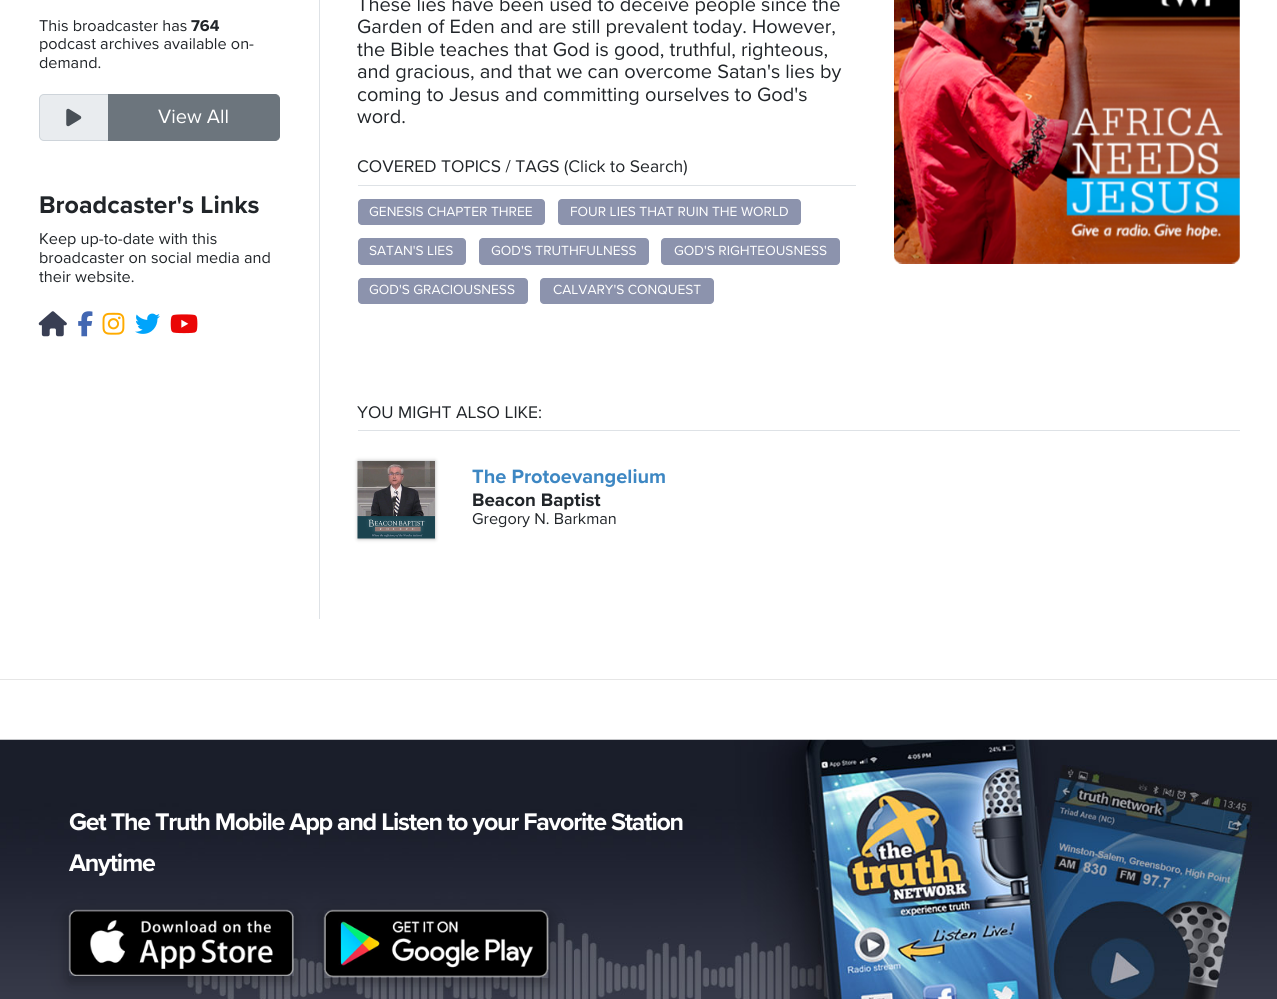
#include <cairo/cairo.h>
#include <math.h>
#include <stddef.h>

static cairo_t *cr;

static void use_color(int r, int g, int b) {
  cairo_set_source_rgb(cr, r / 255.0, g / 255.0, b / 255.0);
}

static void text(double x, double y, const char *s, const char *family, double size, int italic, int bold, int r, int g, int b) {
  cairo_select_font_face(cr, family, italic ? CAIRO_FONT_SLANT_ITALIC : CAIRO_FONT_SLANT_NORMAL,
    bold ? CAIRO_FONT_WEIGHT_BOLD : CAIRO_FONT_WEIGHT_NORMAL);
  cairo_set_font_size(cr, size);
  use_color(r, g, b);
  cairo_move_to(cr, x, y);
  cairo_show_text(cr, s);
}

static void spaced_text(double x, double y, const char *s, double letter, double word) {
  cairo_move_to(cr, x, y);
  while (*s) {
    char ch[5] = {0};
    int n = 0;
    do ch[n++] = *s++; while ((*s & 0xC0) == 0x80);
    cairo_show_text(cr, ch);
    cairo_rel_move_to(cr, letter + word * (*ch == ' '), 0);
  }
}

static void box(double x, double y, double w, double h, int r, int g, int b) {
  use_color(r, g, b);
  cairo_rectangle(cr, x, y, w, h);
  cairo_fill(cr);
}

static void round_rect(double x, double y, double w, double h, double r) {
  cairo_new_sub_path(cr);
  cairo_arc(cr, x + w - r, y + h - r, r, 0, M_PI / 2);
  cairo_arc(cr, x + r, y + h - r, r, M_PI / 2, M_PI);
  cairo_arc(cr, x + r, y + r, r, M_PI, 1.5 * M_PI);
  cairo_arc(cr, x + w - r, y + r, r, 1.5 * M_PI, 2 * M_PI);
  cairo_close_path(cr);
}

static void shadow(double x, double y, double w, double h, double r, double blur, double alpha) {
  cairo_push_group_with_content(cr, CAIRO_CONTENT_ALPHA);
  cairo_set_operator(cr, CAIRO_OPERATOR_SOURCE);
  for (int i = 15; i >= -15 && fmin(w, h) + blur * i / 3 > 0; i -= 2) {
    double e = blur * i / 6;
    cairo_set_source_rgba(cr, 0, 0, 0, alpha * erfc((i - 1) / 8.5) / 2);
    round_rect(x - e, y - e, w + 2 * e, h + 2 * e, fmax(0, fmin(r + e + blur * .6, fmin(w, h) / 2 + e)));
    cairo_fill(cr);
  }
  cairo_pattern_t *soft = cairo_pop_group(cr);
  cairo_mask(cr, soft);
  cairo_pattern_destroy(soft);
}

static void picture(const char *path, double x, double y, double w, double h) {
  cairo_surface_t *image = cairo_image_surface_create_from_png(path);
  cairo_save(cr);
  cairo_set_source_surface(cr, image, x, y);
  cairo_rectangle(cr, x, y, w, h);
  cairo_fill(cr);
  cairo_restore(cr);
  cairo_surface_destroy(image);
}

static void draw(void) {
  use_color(255, 255, 255);
  cairo_paint(cr);
  box(319, 0, 1, 619, 222, 226, 230);
  use_color(233, 236, 239);
  cairo_new_path(cr);
  cairo_move_to(cr, 44, 94.5);
  cairo_line_to(cr, 108.5, 94.5);
  cairo_line_to(cr, 108.5, 140.5);
  cairo_line_to(cr, 44, 140.5);
  cairo_curve_to(cr, 41.5, 140.5, 39.5, 138.5, 39.5, 136);
  cairo_line_to(cr, 39.5, 99);
  cairo_curve_to(cr, 39.5, 96.5, 41.5, 94.5, 44, 94.5);
  cairo_close_path(cr);
  cairo_fill_preserve(cr);
  use_color(206, 212, 218);
  cairo_set_line_width(cr, 1);
  cairo_stroke(cr);
  picture("img_01.png", 66, 108, 16, 19);
  use_color(108, 117, 125);
  cairo_new_path(cr);
  cairo_move_to(cr, 108.5, 94.5);
  cairo_line_to(cr, 275, 94.5);
  cairo_curve_to(cr, 277.5, 94.5, 279.5, 96.5, 279.5, 99);
  cairo_line_to(cr, 279.5, 136);
  cairo_curve_to(cr, 279.5, 138.5, 277.5, 140.5, 275, 140.5);
  cairo_line_to(cr, 108.5, 140.5);
  cairo_close_path(cr);
  cairo_fill_preserve(cr);
  cairo_stroke(cr);
  picture("img_02.png", 38, 311, 29, 26);
  picture("img_03.png", 78, 311, 15, 26);
  picture("img_04.png", 102, 312, 23, 23);
  picture("img_05.png", 135, 313, 25, 21);
  picture("img_06.png", 170, 314, 28, 20);
  box(358, 185, 498, 1, 222, 226, 230);
  use_color(140, 147, 173);
  round_rect(358, 199, 187, 26, 4);
  cairo_fill(cr);
  round_rect(558, 199, 243, 26, 4);
  cairo_fill(cr);
  round_rect(358, 238, 108, 27, 4);
  cairo_fill(cr);
  round_rect(479, 238, 170, 27, 4);
  cairo_fill(cr);
  round_rect(661, 238, 179, 27, 4);
  cairo_fill(cr);
  round_rect(358, 278, 170, 26, 4);
  cairo_fill(cr);
  round_rect(540, 278, 174, 26, 4);
  cairo_fill(cr);
  picture("img_07.png", 894, 0, 346, 264);
  box(358, 430, 882, 1, 222, 226, 230);
  use_color(178, 178, 178);
  shadow(358, 461, 77, 78, 0, 2, 1);
  picture("img_08.png", 357, 461, 78, 78);
  box(0, 679, 1277, 1, 230, 230, 230);
  picture("img_09.png", 0, 739, 1277, 260);
  cairo_save(cr);
  cairo_set_fill_rule(cr, CAIRO_FILL_RULE_EVEN_ODD);
  cairo_new_path(cr);
  cairo_move_to(cr, 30, 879);
  cairo_line_to(cr, 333, 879);
  cairo_line_to(cr, 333, 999);
  cairo_line_to(cr, 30, 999);
  cairo_close_path(cr);
  cairo_move_to(cr, 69, 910);
  cairo_line_to(cr, 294, 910);
  cairo_line_to(cr, 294, 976);
  cairo_line_to(cr, 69, 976);
  cairo_close_path(cr);
  cairo_clip(cr);
  use_color(0, 0, 0);
  shadow(69, 918, 225, 66, 0, 12.5, 0.19);
  cairo_restore(cr);
  cairo_save(cr);
  cairo_set_fill_rule(cr, CAIRO_FILL_RULE_EVEN_ODD);
  cairo_new_path(cr);
  cairo_move_to(cr, 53, 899);
  cairo_line_to(cr, 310, 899);
  cairo_line_to(cr, 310, 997);
  cairo_line_to(cr, 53, 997);
  cairo_close_path(cr);
  cairo_move_to(cr, 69, 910);
  cairo_line_to(cr, 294, 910);
  cairo_line_to(cr, 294, 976);
  cairo_line_to(cr, 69, 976);
  cairo_close_path(cr);
  cairo_clip(cr);
  use_color(0, 0, 0);
  shadow(69, 915, 225, 66, 0, 5, 0.2);
  cairo_restore(cr);
  picture("img_10.png", 68, 909, 226, 67);
  cairo_save(cr);
  cairo_set_fill_rule(cr, CAIRO_FILL_RULE_EVEN_ODD);
  cairo_new_path(cr);
  cairo_move_to(cr, 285, 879);
  cairo_line_to(cr, 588, 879);
  cairo_line_to(cr, 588, 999);
  cairo_line_to(cr, 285, 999);
  cairo_close_path(cr);
  cairo_move_to(cr, 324, 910);
  cairo_line_to(cr, 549, 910);
  cairo_line_to(cr, 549, 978);
  cairo_line_to(cr, 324, 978);
  cairo_close_path(cr);
  cairo_clip(cr);
  use_color(0, 0, 0);
  shadow(324, 918, 225, 67, 0, 12.5, 0.19);
  cairo_restore(cr);
  cairo_save(cr);
  cairo_set_fill_rule(cr, CAIRO_FILL_RULE_EVEN_ODD);
  cairo_new_path(cr);
  cairo_move_to(cr, 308, 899);
  cairo_line_to(cr, 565, 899);
  cairo_line_to(cr, 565, 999);
  cairo_line_to(cr, 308, 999);
  cairo_close_path(cr);
  cairo_move_to(cr, 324, 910);
  cairo_line_to(cr, 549, 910);
  cairo_line_to(cr, 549, 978);
  cairo_line_to(cr, 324, 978);
  cairo_close_path(cr);
  cairo_clip(cr);
  use_color(0, 0, 0);
  shadow(324, 915, 225, 68, 0, 5, 0.2);
  cairo_restore(cr);
  picture("img_11.png", 323, 909, 226, 69);
  text(39, 31, "This broadcaster has", "Proxima Nova", 16.25, 0, 0, 33, 37, 41);
  text(191, 31, "764", "Proxima Nova", 16.25, 0, 1, 33, 37, 41);
  text(39, 49, "podcast archives available on-", "Proxima Nova", 16.25, 0, 0, 33, 37, 41);
  text(39, 68, "demand.", "Proxima Nova", 16.25, 0, 0, 33, 37, 41);
  text(158, 123, "View All", "Proxima Nova", 20, 0, 0, 255, 255, 255);
  text(39, 213, "Broadcaster's Links", "Proxima Nova", 25, 0, 1, 33, 37, 41);
  text(39, 244, "Keep up-to-date with this", "Proxima Nova", 16.25, 0, 0, 33, 37, 41);
  text(39, 263, "broadcaster on social media and", "Proxima Nova", 16.25, 0, 0, 33, 37, 41);
  text(39, 282, "their website.", "Proxima Nova", 16.25, 0, 0, 33, 37, 41);
  text(357, 11, "These lies have been used to deceive people since the", "Proxima Nova", 20, 0, 0, 33, 37, 41);
  text(357, 33, "Garden of Eden and are still prevalent today. However,", "Proxima Nova", 20, 0, 0, 33, 37, 41);
  text(357, 56, "the Bible teaches that God is good, truthful, righteous,", "Proxima Nova", 20, 0, 0, 33, 37, 41);
  text(357, 78, "and gracious, and that we can overcome Satan's lies by", "Proxima Nova", 20, 0, 0, 33, 37, 41);
  text(357, 101, "coming to Jesus and committing ourselves to God's", "Proxima Nova", 20, 0, 0, 33, 37, 41);
  text(357, 123, "word.", "Proxima Nova", 20, 0, 0, 33, 37, 41);
  text(357, 172, "COVERED TOPICS / TAGS (Click to Search)", "Proxima Nova", 17.5, 0, 0, 33, 37, 41);
  text(369, 216, "GENESIS CHAPTER THREE", "Proxima Nova", 13.75, 0, 0, 255, 255, 255);
  text(570, 216, "FOUR LIES THAT RUIN THE WORLD", "Proxima Nova", 13.75, 0, 0, 255, 255, 255);
  text(369, 255, "SATAN'S LIES", "Proxima Nova", 13.75, 0, 0, 255, 255, 255);
  text(491, 255, "GOD'S TRUTHFULNESS", "Proxima Nova", 13.75, 0, 0, 255, 255, 255);
  text(674, 255, "GOD'S RIGHTEOUSNESS", "Proxima Nova", 13.75, 0, 0, 255, 255, 255);
  text(369, 294, "GOD'S GRACIOUSNESS", "Proxima Nova", 13.75, 0, 0, 255, 255, 255);
  text(553, 294, "CALVARY'S CONQUEST", "Proxima Nova", 13.75, 0, 0, 255, 255, 255);
  text(357, 418, "YOU MIGHT ALSO LIKE:", "Proxima Nova", 17.5, 0, 0, 33, 37, 41);
  text(472, 483, "The Protoevangelium", "Proxima Nova", 20, 0, 1, 61, 135, 195);
  text(472, 506, "Beacon Baptist", "Proxima Nova", 18.75, 0, 1, 33, 37, 41);
  text(472, 524, "Gregory N. Barkman", "Proxima Nova", 16.25, 0, 0, 33, 37, 41);
  cairo_select_font_face(cr, "Proxima Nova", CAIRO_FONT_SLANT_NORMAL, CAIRO_FONT_WEIGHT_BOLD);
  cairo_set_font_size(cr, 25);
  use_color(255, 255, 255);
  spaced_text(69, 830, "Get The Truth Mobile App and Listen to your Favorite Station", -1.25, 0);
  spaced_text(69, 871, "Anytime", -1.25, 0);
}

int main(void) {
  cairo_surface_t *surface = cairo_image_surface_create(CAIRO_FORMAT_RGB24, 1277, 999);
  cr = cairo_create(surface);
  cairo_font_options_t *options = cairo_font_options_create();
  cairo_font_options_set_hint_metrics(options, CAIRO_HINT_METRICS_OFF);
  cairo_font_options_set_hint_style(options, CAIRO_HINT_STYLE_NONE);
  cairo_set_font_options(cr, options);
  cairo_set_miter_limit(cr, 4);
  draw();
  cairo_surface_write_to_png(surface, "out.png");
  cairo_font_options_destroy(options);
  cairo_destroy(cr);
  cairo_surface_destroy(surface);
  return 0;
}
